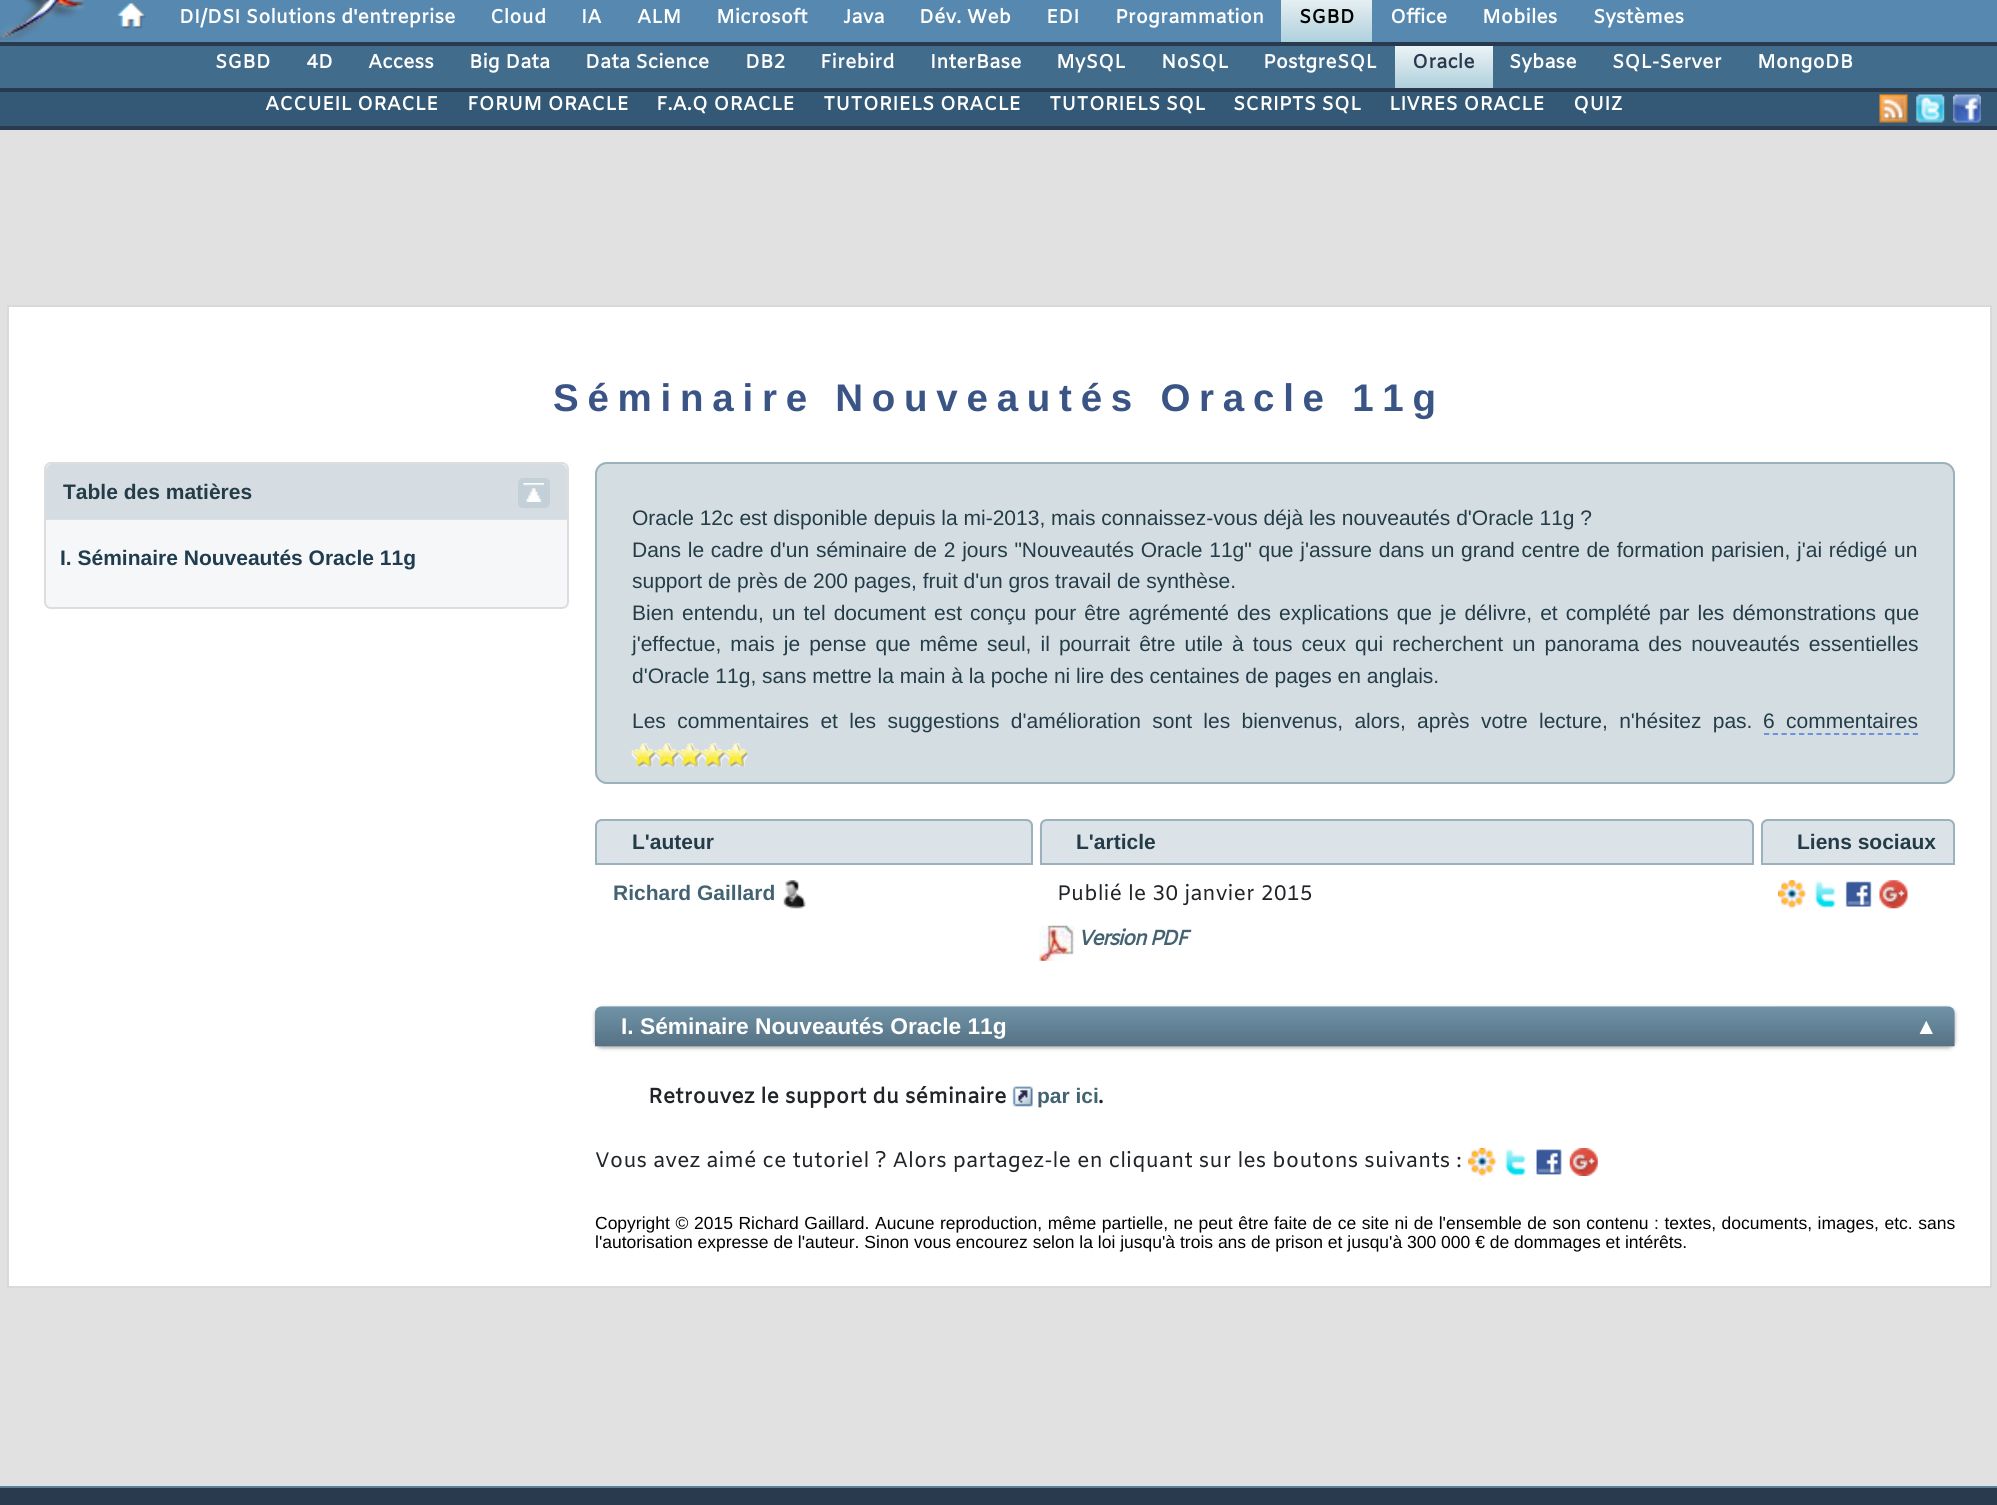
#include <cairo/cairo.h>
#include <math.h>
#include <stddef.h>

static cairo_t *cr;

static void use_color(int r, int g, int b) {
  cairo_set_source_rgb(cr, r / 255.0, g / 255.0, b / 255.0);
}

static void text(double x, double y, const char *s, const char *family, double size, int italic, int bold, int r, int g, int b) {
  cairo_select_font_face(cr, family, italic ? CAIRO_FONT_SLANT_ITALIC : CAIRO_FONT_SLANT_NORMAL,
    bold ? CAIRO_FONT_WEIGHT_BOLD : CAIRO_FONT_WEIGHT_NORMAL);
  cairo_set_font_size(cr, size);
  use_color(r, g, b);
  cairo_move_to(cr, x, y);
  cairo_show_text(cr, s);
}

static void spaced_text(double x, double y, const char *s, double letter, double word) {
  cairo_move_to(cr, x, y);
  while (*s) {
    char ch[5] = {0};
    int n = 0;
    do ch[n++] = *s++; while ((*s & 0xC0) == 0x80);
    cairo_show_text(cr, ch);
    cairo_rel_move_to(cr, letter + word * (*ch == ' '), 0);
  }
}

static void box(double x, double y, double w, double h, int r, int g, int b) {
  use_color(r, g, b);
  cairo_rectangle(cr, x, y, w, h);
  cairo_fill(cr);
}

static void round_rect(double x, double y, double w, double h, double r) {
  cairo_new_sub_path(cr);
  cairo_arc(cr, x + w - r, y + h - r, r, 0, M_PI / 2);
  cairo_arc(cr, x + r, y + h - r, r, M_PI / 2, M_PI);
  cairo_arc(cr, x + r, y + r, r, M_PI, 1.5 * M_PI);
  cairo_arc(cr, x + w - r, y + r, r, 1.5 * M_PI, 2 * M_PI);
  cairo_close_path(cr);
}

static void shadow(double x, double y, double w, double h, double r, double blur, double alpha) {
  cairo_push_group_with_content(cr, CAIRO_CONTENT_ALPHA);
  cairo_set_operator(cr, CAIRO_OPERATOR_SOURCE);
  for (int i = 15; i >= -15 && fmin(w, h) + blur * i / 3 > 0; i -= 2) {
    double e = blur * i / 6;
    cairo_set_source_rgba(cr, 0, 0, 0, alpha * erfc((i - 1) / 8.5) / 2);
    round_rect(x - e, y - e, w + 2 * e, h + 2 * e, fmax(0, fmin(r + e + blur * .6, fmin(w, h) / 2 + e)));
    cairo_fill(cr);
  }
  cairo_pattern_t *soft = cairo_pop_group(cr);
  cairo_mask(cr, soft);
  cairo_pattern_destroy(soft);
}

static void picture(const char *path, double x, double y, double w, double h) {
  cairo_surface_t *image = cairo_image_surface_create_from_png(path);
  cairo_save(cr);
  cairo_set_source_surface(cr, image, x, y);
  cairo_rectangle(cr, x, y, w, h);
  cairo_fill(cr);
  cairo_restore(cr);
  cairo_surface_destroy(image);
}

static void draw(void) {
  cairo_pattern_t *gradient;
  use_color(41, 58, 78);
  cairo_paint(cr);
  box(0, 0, 1997, 42, 87, 137, 176);
  picture("img_01.png", 0, 0, 84, 41);
  picture("img_02.png", 117, 3, 29, 26);
  gradient = cairo_pattern_create_linear(1327, -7, 1327, 42);
  cairo_pattern_add_color_stop_rgba(gradient, 0, 0.918, 0.961, 0.973, 1);
  cairo_pattern_add_color_stop_rgba(gradient, 0.37, 0.847, 0.902, 0.925, 1);
  cairo_pattern_add_color_stop_rgba(gradient, 1, 0.682, 0.82, 0.867, 1);
  cairo_set_source(cr, gradient);
  cairo_pattern_destroy(gradient);
  cairo_rectangle(cr, 1281, 0, 91, 42);
  cairo_fill(cr);
  box(0, 46, 1997, 42, 66, 108, 140);
  gradient = cairo_pattern_create_linear(1444, 45, 1444, 88);
  cairo_pattern_add_color_stop_rgba(gradient, 0, 0.918, 0.961, 0.973, 1);
  cairo_pattern_add_color_stop_rgba(gradient, 0.37, 0.847, 0.902, 0.925, 1);
  cairo_pattern_add_color_stop_rgba(gradient, 1, 0.682, 0.82, 0.867, 1);
  cairo_set_source(cr, gradient);
  cairo_pattern_destroy(gradient);
  cairo_rectangle(cr, 1395, 46, 98, 42);
  cairo_fill(cr);
  box(0, 92, 1997, 34, 52, 89, 118);
  picture("img_03.png", 1879, 94, 29, 29);
  picture("img_04.png", 1916, 94, 29, 29);
  picture("img_05.png", 1953, 94, 28, 29);
  box(0, 130, 1997, 1356, 225, 225, 226);
  use_color(255, 255, 255);
  cairo_rectangle(cr, 8, 306, 1983, 981);
  cairo_fill_preserve(cr);
  use_color(215, 217, 219);
  cairo_stroke(cr);
  use_color(245, 247, 248);
  round_rect(45, 463, 523, 145, 6);
  cairo_fill_preserve(cr);
  use_color(221, 221, 221);
  cairo_stroke(cr);
  use_color(227, 233, 236);
  cairo_new_path(cr);
  cairo_move_to(cr, 53, 464);
  cairo_line_to(cr, 560, 464);
  cairo_curve_to(cr, 564, 464, 567, 467, 567, 471);
  cairo_line_to(cr, 567, 520);
  cairo_line_to(cr, 46, 520);
  cairo_line_to(cr, 46, 471);
  cairo_curve_to(cr, 46, 467, 49, 464, 53, 464);
  cairo_close_path(cr);
  cairo_fill(cr);
  picture("img_06.png", 46, 464, 521, 56);
  use_color(195, 208, 215);
  round_rect(518, 478, 32, 30, 5);
  cairo_fill(cr);
  picture("img_07.png", 523, 483, 21, 19);
  use_color(226, 232, 235);
  round_rect(595, 462, 1360, 322, 12);
  cairo_fill(cr);
  picture("img_08.png", 595, 462, 1360, 322);
  round_rect(596, 463, 1358, 320, 11);
  use_color(155, 177, 188);
  cairo_stroke(cr);
  cairo_new_path(cr);
  cairo_move_to(cr, 1764, 734);
  cairo_line_to(cr, 1918, 734);
  use_color(99, 137, 216);
  cairo_set_line_width(cr, 1.8);
  cairo_set_dash(cr, (double[]){5.25, 3.5}, 2, 0);
  cairo_stroke(cr);
  picture("img_09.png", 631, 743, 117, 24);
  use_color(235, 239, 242);
  cairo_new_path(cr);
  cairo_move_to(cr, 602, 819);
  cairo_line_to(cr, 1026, 819);
  cairo_curve_to(cr, 1030, 819, 1033, 822, 1033, 826);
  cairo_line_to(cr, 1033, 865);
  cairo_line_to(cr, 595, 865);
  cairo_line_to(cr, 595, 826);
  cairo_curve_to(cr, 595, 822, 598, 819, 602, 819);
  cairo_close_path(cr);
  cairo_fill(cr);
  picture("img_10.png", 595, 820, 438, 43);
  cairo_new_path(cr);
  cairo_move_to(cr, 602, 820);
  cairo_line_to(cr, 1026, 820);
  cairo_curve_to(cr, 1029.5, 820, 1032, 822.5, 1032, 826);
  cairo_line_to(cr, 1032, 864);
  cairo_line_to(cr, 596, 864);
  cairo_line_to(cr, 596, 826);
  cairo_curve_to(cr, 596, 822.5, 598.5, 820, 602, 820);
  cairo_close_path(cr);
  use_color(155, 177, 188);
  cairo_set_line_width(cr, 2);
  cairo_set_dash(cr, NULL, 0, 0);
  cairo_stroke(cr);
  picture("img_11.png", 783, 880, 23, 29);
  use_color(235, 239, 242);
  cairo_new_path(cr);
  cairo_move_to(cr, 1047, 819);
  cairo_line_to(cr, 1747, 819);
  cairo_curve_to(cr, 1751, 819, 1754, 822, 1754, 826);
  cairo_line_to(cr, 1754, 865);
  cairo_line_to(cr, 1040, 865);
  cairo_line_to(cr, 1040, 826);
  cairo_curve_to(cr, 1040, 822, 1043, 819, 1047, 819);
  cairo_close_path(cr);
  cairo_fill(cr);
  picture("img_12.png", 1039, 820, 715, 44);
  cairo_new_path(cr);
  cairo_move_to(cr, 1047, 820);
  cairo_line_to(cr, 1747, 820);
  cairo_curve_to(cr, 1750.5, 820, 1753, 822.5, 1753, 826);
  cairo_line_to(cr, 1753, 864);
  cairo_line_to(cr, 1041, 864);
  cairo_line_to(cr, 1041, 826);
  cairo_curve_to(cr, 1041, 822.5, 1043.5, 820, 1047, 820);
  cairo_close_path(cr);
  use_color(155, 177, 188);
  cairo_stroke(cr);
  picture("img_13.png", 1039, 925, 36, 36);
  use_color(235, 239, 242);
  cairo_new_path(cr);
  cairo_move_to(cr, 1768, 819);
  cairo_line_to(cr, 1948, 819);
  cairo_curve_to(cr, 1952, 819, 1955, 822, 1955, 826);
  cairo_line_to(cr, 1955, 865);
  cairo_line_to(cr, 1761, 865);
  cairo_line_to(cr, 1761, 826);
  cairo_curve_to(cr, 1761, 822, 1764, 819, 1768, 819);
  cairo_close_path(cr);
  cairo_fill(cr);
  picture("img_14.png", 1760, 820, 195, 44);
  cairo_new_path(cr);
  cairo_move_to(cr, 1768, 820);
  cairo_line_to(cr, 1948, 820);
  cairo_curve_to(cr, 1951.5, 820, 1954, 822.5, 1954, 826);
  cairo_line_to(cr, 1954, 864);
  cairo_line_to(cr, 1762, 864);
  cairo_line_to(cr, 1762, 826);
  cairo_curve_to(cr, 1762, 822.5, 1764.5, 820, 1768, 820);
  cairo_close_path(cr);
  use_color(155, 177, 188);
  cairo_stroke(cr);
  picture("img_15.png", 1778, 880, 28, 29);
  picture("img_16.png", 1814, 880, 23, 29);
  picture("img_17.png", 1845, 881, 27, 26);
  picture("img_18.png", 1879, 880, 29, 29);
  use_color(171, 172, 173);
  shadow(595, 1008, 1360, 40, 7, 2, 1);
  picture("img_19.png", 595, 1006, 1360, 41);
  picture("img_20.png", 1012, 1086, 21, 21);
  picture("img_21.png", 1468, 1148, 29, 28);
  picture("img_22.png", 1504, 1148, 23, 28);
  picture("img_23.png", 1536, 1149, 26, 26);
  picture("img_24.png", 1569, 1148, 29, 28);
  box(0, 1486, 1997, 2, 90, 127, 151);
  text(179, 23, "DI/DSI Solutions d'entreprise", "Amiko", 19.25, 0, 1, 255, 255, 255);
  text(490, 23, "Cloud", "Amiko", 19.25, 0, 1, 255, 255, 255);
  text(581, 23, "IA", "Amiko", 19.25, 0, 1, 255, 255, 255);
  text(637, 23, "ALM", "Amiko", 19.25, 0, 1, 255, 255, 255);
  text(716, 23, "Microsoft", "Amiko", 19.25, 0, 1, 255, 255, 255);
  text(843, 23, "Java", "Amiko", 19.25, 0, 1, 255, 255, 255);
  text(919, 23, "Dév. Web", "Amiko", 19.25, 0, 1, 255, 255, 255);
  text(1046, 23, "EDI", "Amiko", 19.25, 0, 1, 255, 255, 255);
  text(1115, 23, "Programmation", "Amiko", 19.25, 0, 1, 255, 255, 255);
  text(1299, 23, "SGBD", "Amiko", 19.25, 0, 1, 0, 0, 0);
  text(1390, 23, "Office", "Amiko", 19.25, 0, 1, 255, 255, 255);
  text(1482, 23, "Mobiles", "Amiko", 19.25, 0, 1, 255, 255, 255);
  text(1593, 23, "Systèmes", "Amiko", 19.25, 0, 1, 255, 255, 255);
  text(215, 68, "SGBD", "Amiko", 19.25, 0, 1, 255, 255, 255);
  text(306, 68, "4D", "Amiko", 19.25, 0, 1, 255, 255, 255);
  text(368, 68, "Access", "Amiko", 19.25, 0, 1, 255, 255, 255);
  text(469, 68, "Big Data", "Amiko", 19.25, 0, 1, 255, 255, 255);
  text(585, 68, "Data Science", "Amiko", 19.25, 0, 1, 255, 255, 255);
  text(745, 68, "DB2", "Amiko", 19.25, 0, 1, 255, 255, 255);
  text(820, 68, "Firebird", "Amiko", 19.25, 0, 1, 255, 255, 255);
  text(930, 68, "InterBase", "Amiko", 19.25, 0, 1, 255, 255, 255);
  text(1056, 68, "MySQL", "Amiko", 19.25, 0, 1, 255, 255, 255);
  text(1161, 68, "NoSQL", "Amiko", 19.25, 0, 1, 255, 255, 255);
  text(1263, 68, "PostgreSQL", "Amiko", 19.25, 0, 1, 255, 255, 255);
  text(1412, 68, "Oracle", "Amiko", 19.25, 0, 1, 41, 58, 78);
  text(1509, 68, "Sybase", "Amiko", 19.25, 0, 1, 255, 255, 255);
  text(1612, 68, "SQL-Server", "Amiko", 19.25, 0, 1, 255, 255, 255);
  text(1757, 68, "MongoDB", "Amiko", 19.25, 0, 1, 255, 255, 255);
  text(265, 110, "ACCUEIL ORACLE", "Amiko", 19.25, 0, 1, 255, 255, 255);
  text(467, 110, "FORUM ORACLE", "Amiko", 19.25, 0, 1, 255, 255, 255);
  text(656, 110, "F.A.Q ORACLE", "Amiko", 19.25, 0, 1, 255, 255, 255);
  text(823, 110, "TUTORIELS ORACLE", "Amiko", 19.25, 0, 1, 255, 255, 255);
  text(1049, 110, "TUTORIELS SQL", "Amiko", 19.25, 0, 1, 255, 255, 255);
  text(1233, 110, "SCRIPTS SQL", "Amiko", 19.25, 0, 1, 255, 255, 255);
  text(1389, 110, "LIVRES ORACLE", "Amiko", 19.25, 0, 1, 255, 255, 255);
  text(1573, 110, "QUIZ", "Amiko", 19.25, 0, 1, 255, 255, 255);
  cairo_select_font_face(cr, "Liberation Sans", CAIRO_FONT_SLANT_NORMAL, CAIRO_FONT_WEIGHT_BOLD);
  cairo_set_font_size(cr, 38.5);
  use_color(58, 84, 134);
  spaced_text(553, 411, "Séminaire Nouveautés Oracle 11g", 8.75, 0);
  text(63, 499, "Table des matières", "Liberation Sans", 21, 0, 1, 36, 60, 71);
  text(60, 565, "I. Séminaire Nouveautés Oracle 11g", "Liberation Sans", 21, 0, 1, 32, 61, 79);
  text(632, 525, "Oracle 12c est disponible depuis la mi-2013, mais connaissez-vous déjà les nouveautés d'Oracle 11g ?", "Liberation Sans", 21, 0, 0, 36, 60, 71);
  spaced_text(632, 557, "Dans le cadre d'un séminaire de 2 jours \"Nouveautés Oracle 11g\" que j'assure dans un grand centre de formation parisien, j'ai rédigé un", 0, 0.9);
  text(632, 588, "support de près de 200 pages, fruit d'un gros travail de synthèse.", "Liberation Sans", 21, 0, 0, 36, 60, 71);
  spaced_text(632, 620, "Bien entendu, un tel document est conçu pour être agrémenté des explications que je délivre, et complété par les démonstrations que", 0, 2.25);
  spaced_text(632, 651, "j'effectue, mais je pense que même seul, il pourrait être utile à tous ceux qui recherchent un panorama des nouveautés essentielles", 0, 3.25);
  text(632, 683, "d'Oracle 11g, sans mettre la main à la poche ni lire des centaines de pages en anglais.", "Liberation Sans", 21, 0, 0, 36, 60, 71);
  spaced_text(632, 728, "Les commentaires et les suggestions d'amélioration sont les bienvenus, alors, après votre lecture, n'hésitez pas.", 0, 5.5);
  text(1763, 728, "6", "Liberation Sans", 21, 0, 0, 36, 60, 71);
  text(1786, 728, "commentaires", "Liberation Sans", 21, 0, 0, 36, 60, 71);
  text(632, 849, "L'auteur", "Liberation Sans", 21, 0, 1, 36, 60, 71);
  text(613, 900, "Richard Gaillard", "Liberation Sans", 21, 0, 1, 68, 99, 114);
  text(1076, 849, "L'article", "Liberation Sans", 21, 0, 1, 36, 60, 71);
  text(1057, 900, "Publié le 30 janvier 2015", "Amiko", 21, 0, 0, 33, 37, 41);
  cairo_select_font_face(cr, "Amiko", CAIRO_FONT_SLANT_ITALIC, CAIRO_FONT_WEIGHT_BOLD);
  use_color(68, 99, 114);
  spaced_text(1078, 945, "Version PDF", -1.75, 0);
  text(1797, 849, "Liens sociaux", "Liberation Sans", 21, 0, 1, 36, 60, 71);
  text(621, 1034, "I. Séminaire Nouveautés Oracle 11g", "Liberation Sans", 22.75, 0, 1, 255, 255, 255);
  text(1915, 1034, "▲", "Liberation Sans", 22.75, 0, 1, 255, 255, 255);
  text(648, 1103, "Retrouvez le support du séminaire", "Amiko", 21, 0, 1, 33, 37, 41);
  text(1037, 1103, "par ici", "Liberation Sans", 21, 0, 1, 68, 99, 114);
  text(1098, 1103, ".", "Amiko", 21, 0, 1, 33, 37, 41);
  text(595, 1167, "Vous avez aimé ce tutoriel ? Alors partagez-le en cliquant sur les boutons suivants :", "Amiko", 21, 0, 0, 33, 37, 41);
  cairo_select_font_face(cr, "Liberation Sans", CAIRO_FONT_SLANT_NORMAL, CAIRO_FONT_WEIGHT_NORMAL);
  cairo_set_font_size(cr, 17.5);
  use_color(0, 0, 0);
  spaced_text(595, 1229, "Copyright © 2015 Richard Gaillard. Aucune reproduction, même partielle, ne peut être faite de ce site ni de l'ensemble de son contenu : textes, documents, images, etc. sans", 0, 0.7);
  text(595, 1248, "l'autorisation expresse de l'auteur. Sinon vous encourez selon la loi jusqu'à trois ans de prison et jusqu'à 300 000 € de dommages et intérêts.", "Liberation Sans", 17.5, 0, 0, 0, 0, 0);
}

int main(void) {
  cairo_surface_t *surface = cairo_image_surface_create(CAIRO_FORMAT_RGB24, 1997, 1505);
  cr = cairo_create(surface);
  cairo_font_options_t *options = cairo_font_options_create();
  cairo_font_options_set_hint_metrics(options, CAIRO_HINT_METRICS_OFF);
  cairo_font_options_set_hint_style(options, CAIRO_HINT_STYLE_NONE);
  cairo_set_font_options(cr, options);
  cairo_set_miter_limit(cr, 4);
  draw();
  cairo_surface_write_to_png(surface, "out.png");
  cairo_font_options_destroy(options);
  cairo_destroy(cr);
  cairo_surface_destroy(surface);
  return 0;
}
